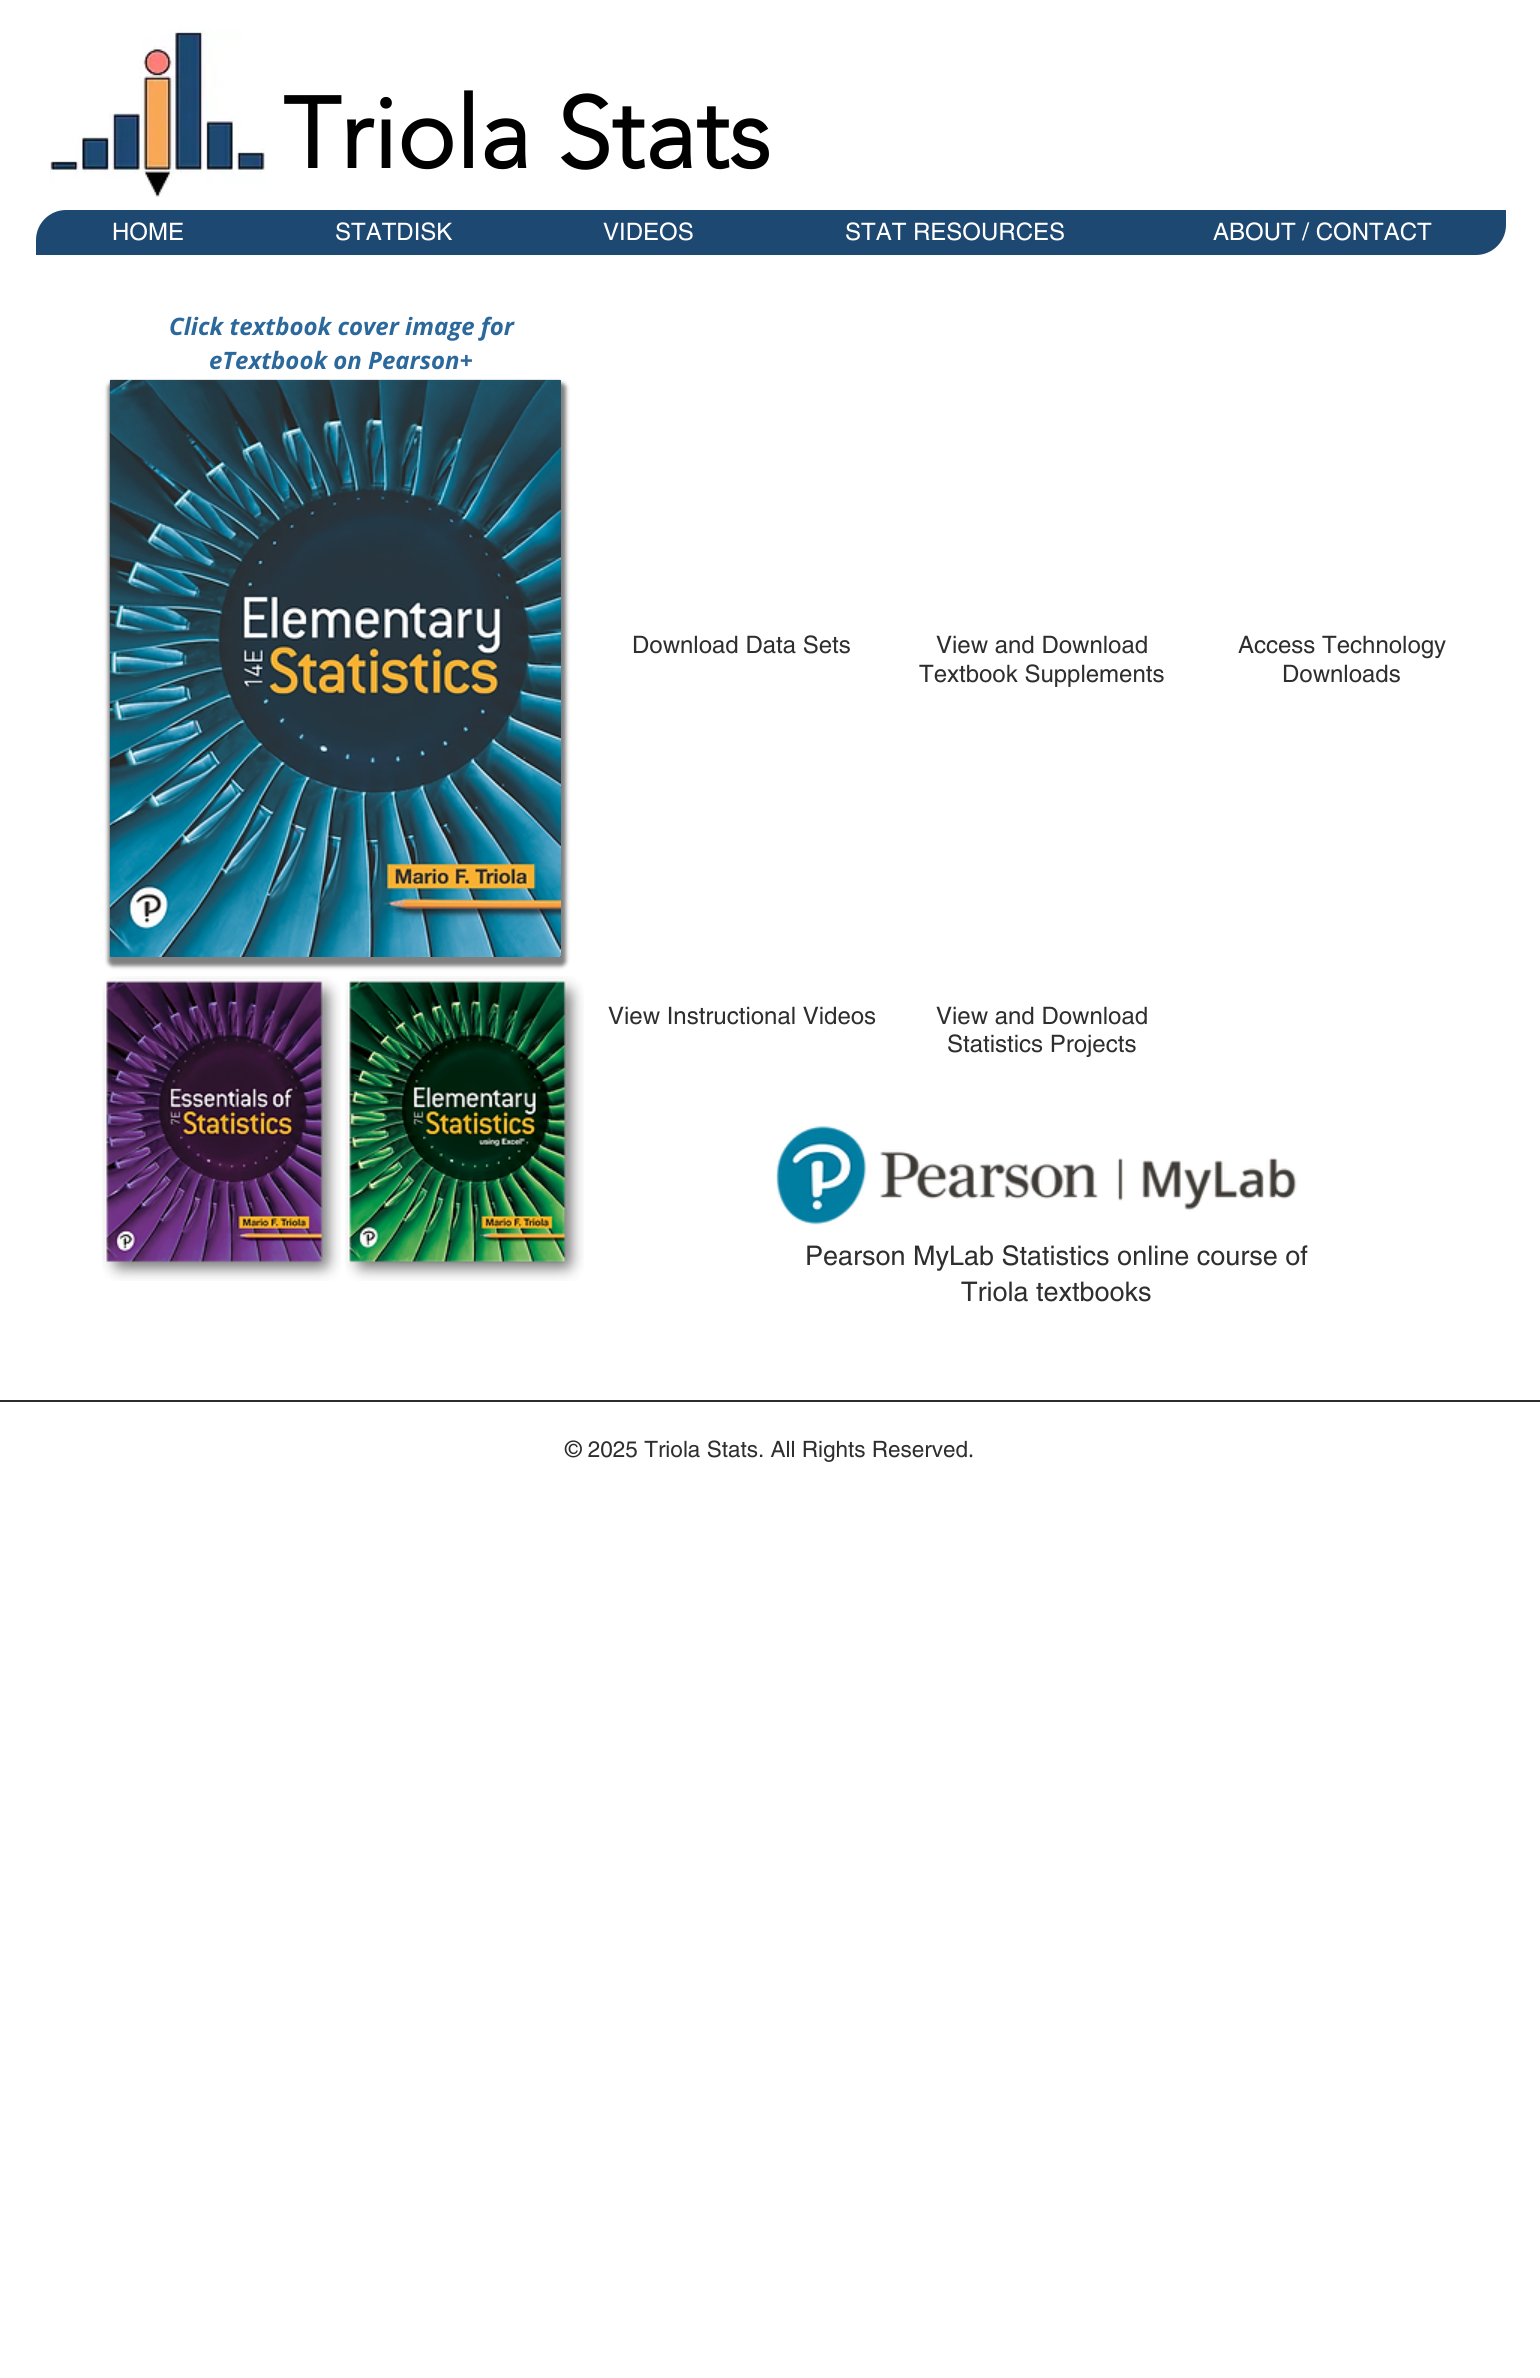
#include <cairo/cairo.h>
#include <math.h>
#include <stddef.h>

static cairo_t *cr;

static void use_color(int r, int g, int b) {
  cairo_set_source_rgb(cr, r / 255.0, g / 255.0, b / 255.0);
}

static void text(double x, double y, const char *s, const char *family, double size, int italic, int bold, int r, int g, int b) {
  cairo_select_font_face(cr, family, italic ? CAIRO_FONT_SLANT_ITALIC : CAIRO_FONT_SLANT_NORMAL,
    bold ? CAIRO_FONT_WEIGHT_BOLD : CAIRO_FONT_WEIGHT_NORMAL);
  cairo_set_font_size(cr, size);
  use_color(r, g, b);
  cairo_move_to(cr, x, y);
  cairo_show_text(cr, s);
}

static void box(double x, double y, double w, double h, int r, int g, int b) {
  use_color(r, g, b);
  cairo_rectangle(cr, x, y, w, h);
  cairo_fill(cr);
}

static void round_rect(double x, double y, double w, double h, double r) {
  cairo_new_sub_path(cr);
  cairo_arc(cr, x + w - r, y + h - r, r, 0, M_PI / 2);
  cairo_arc(cr, x + r, y + h - r, r, M_PI / 2, M_PI);
  cairo_arc(cr, x + r, y + r, r, M_PI, 1.5 * M_PI);
  cairo_arc(cr, x + w - r, y + r, r, 1.5 * M_PI, 2 * M_PI);
  cairo_close_path(cr);
}

static void shadow(double x, double y, double w, double h, double r, double blur, double alpha) {
  cairo_push_group_with_content(cr, CAIRO_CONTENT_ALPHA);
  cairo_set_operator(cr, CAIRO_OPERATOR_SOURCE);
  for (int i = 15; i >= -15 && fmin(w, h) + blur * i / 3 > 0; i -= 2) {
    double e = blur * i / 6;
    cairo_set_source_rgba(cr, 0, 0, 0, alpha * erfc((i - 1) / 8.5) / 2);
    round_rect(x - e, y - e, w + 2 * e, h + 2 * e, fmax(0, fmin(r + e + blur * .6, fmin(w, h) / 2 + e)));
    cairo_fill(cr);
  }
  cairo_pattern_t *soft = cairo_pop_group(cr);
  cairo_mask(cr, soft);
  cairo_pattern_destroy(soft);
}

static void picture(const char *path, double x, double y, double w, double h) {
  cairo_surface_t *image = cairo_image_surface_create_from_png(path);
  cairo_save(cr);
  cairo_set_source_surface(cr, image, x, y);
  cairo_rectangle(cr, x, y, w, h);
  cairo_fill(cr);
  cairo_restore(cr);
  cairo_surface_destroy(image);
}

static void draw(void) {
  use_color(255, 255, 255);
  cairo_paint(cr);
  picture("img_01.png", 50, 28, 216, 169);
  use_color(29, 72, 113);
  cairo_new_path(cr);
  cairo_move_to(cr, 66, 210);
  cairo_line_to(cr, 1506, 210);
  cairo_line_to(cr, 1506, 225);
  cairo_curve_to(cr, 1506, 241.5, 1492.5, 255, 1476, 255);
  cairo_line_to(cr, 36, 255);
  cairo_line_to(cr, 36, 240);
  cairo_curve_to(cr, 36, 223.5, 49.5, 210, 66, 210);
  cairo_close_path(cr);
  cairo_fill(cr);
  use_color(0, 0, 0);
  shadow(108, 383, 458, 583, 5, 2, 0.5);
  use_color(44, 44, 43);
  round_rect(110, 380, 451, 577, 1.5);
  cairo_fill(cr);
  picture("img_02.png", 109, 379, 452, 578);
  picture("img_03.png", 102, 976, 239, 305);
  picture("img_04.png", 345, 976, 239, 305);
  picture("img_05.png", 776, 1126, 521, 99);
  box(0, 1400, 1540, 2, 44, 44, 43);
  text(283, 168, "Triola Stats", "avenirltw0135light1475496", 99, 0, 1, 0, 0, 0);
  text(112, 240, "HOME", "helvetica", 24, 0, 0, 255, 255, 255);
  text(335, 240, "STATDISK", "helvetica", 24, 0, 0, 255, 255, 255);
  text(603, 240, "VIDEOS", "helvetica", 24, 0, 0, 255, 255, 255);
  text(845, 240, "STAT RESOURCES", "helvetica", 24, 0, 0, 255, 255, 255);
  text(1213, 240, "ABOUT / CONTACT", "helvetica", 24, 0, 0, 255, 255, 255);
  text(169, 335, "Click textbook cover image for", "Open Sans", 24, 1, 1, 43, 104, 156);
  text(209, 369, "eTextbook on Pearson+", "Open Sans", 24, 1, 1, 43, 104, 156);
  text(632, 653, "Download Data Sets", "helvetica", 24, 0, 0, 47, 46, 46);
  text(936, 653, "View and Download", "helvetica", 24, 0, 0, 47, 46, 46);
  text(919, 682, "Textbook Supplements", "helvetica", 24, 0, 0, 47, 46, 46);
  text(1238, 653, "Access Technology", "helvetica", 24, 0, 0, 47, 46, 46);
  text(1282, 682, "Downloads", "helvetica", 24, 0, 0, 47, 46, 46);
  text(608, 1024, "View Instructional Videos", "helvetica", 24, 0, 0, 47, 46, 46);
  text(936, 1024, "View and Download", "helvetica", 24, 0, 0, 47, 46, 46);
  text(947, 1052, "Statistics Projects", "helvetica", 24, 0, 0, 47, 46, 46);
  text(805, 1265, "Pearson MyLab Statistics online course of", "helvetica", 27, 0, 0, 47, 46, 46);
  text(961, 1301, "Triola textbooks", "helvetica", 27, 0, 0, 47, 46, 46);
  text(565, 1457, "© 2025 Triola Stats. All Rights Reserved", "helvetica", 22.5, 0, 0, 47, 46, 46);
  text(968, 1457, ".", "Open Sans", 22.5, 0, 0, 47, 46, 46);
}

int main(void) {
  cairo_surface_t *surface = cairo_image_surface_create(CAIRO_FORMAT_RGB24, 1540, 2378);
  cr = cairo_create(surface);
  cairo_font_options_t *options = cairo_font_options_create();
  cairo_font_options_set_hint_metrics(options, CAIRO_HINT_METRICS_OFF);
  cairo_font_options_set_hint_style(options, CAIRO_HINT_STYLE_NONE);
  cairo_set_font_options(cr, options);
  cairo_set_miter_limit(cr, 4);
  draw();
  cairo_surface_write_to_png(surface, "out.png");
  cairo_font_options_destroy(options);
  cairo_destroy(cr);
  cairo_surface_destroy(surface);
  return 0;
}
